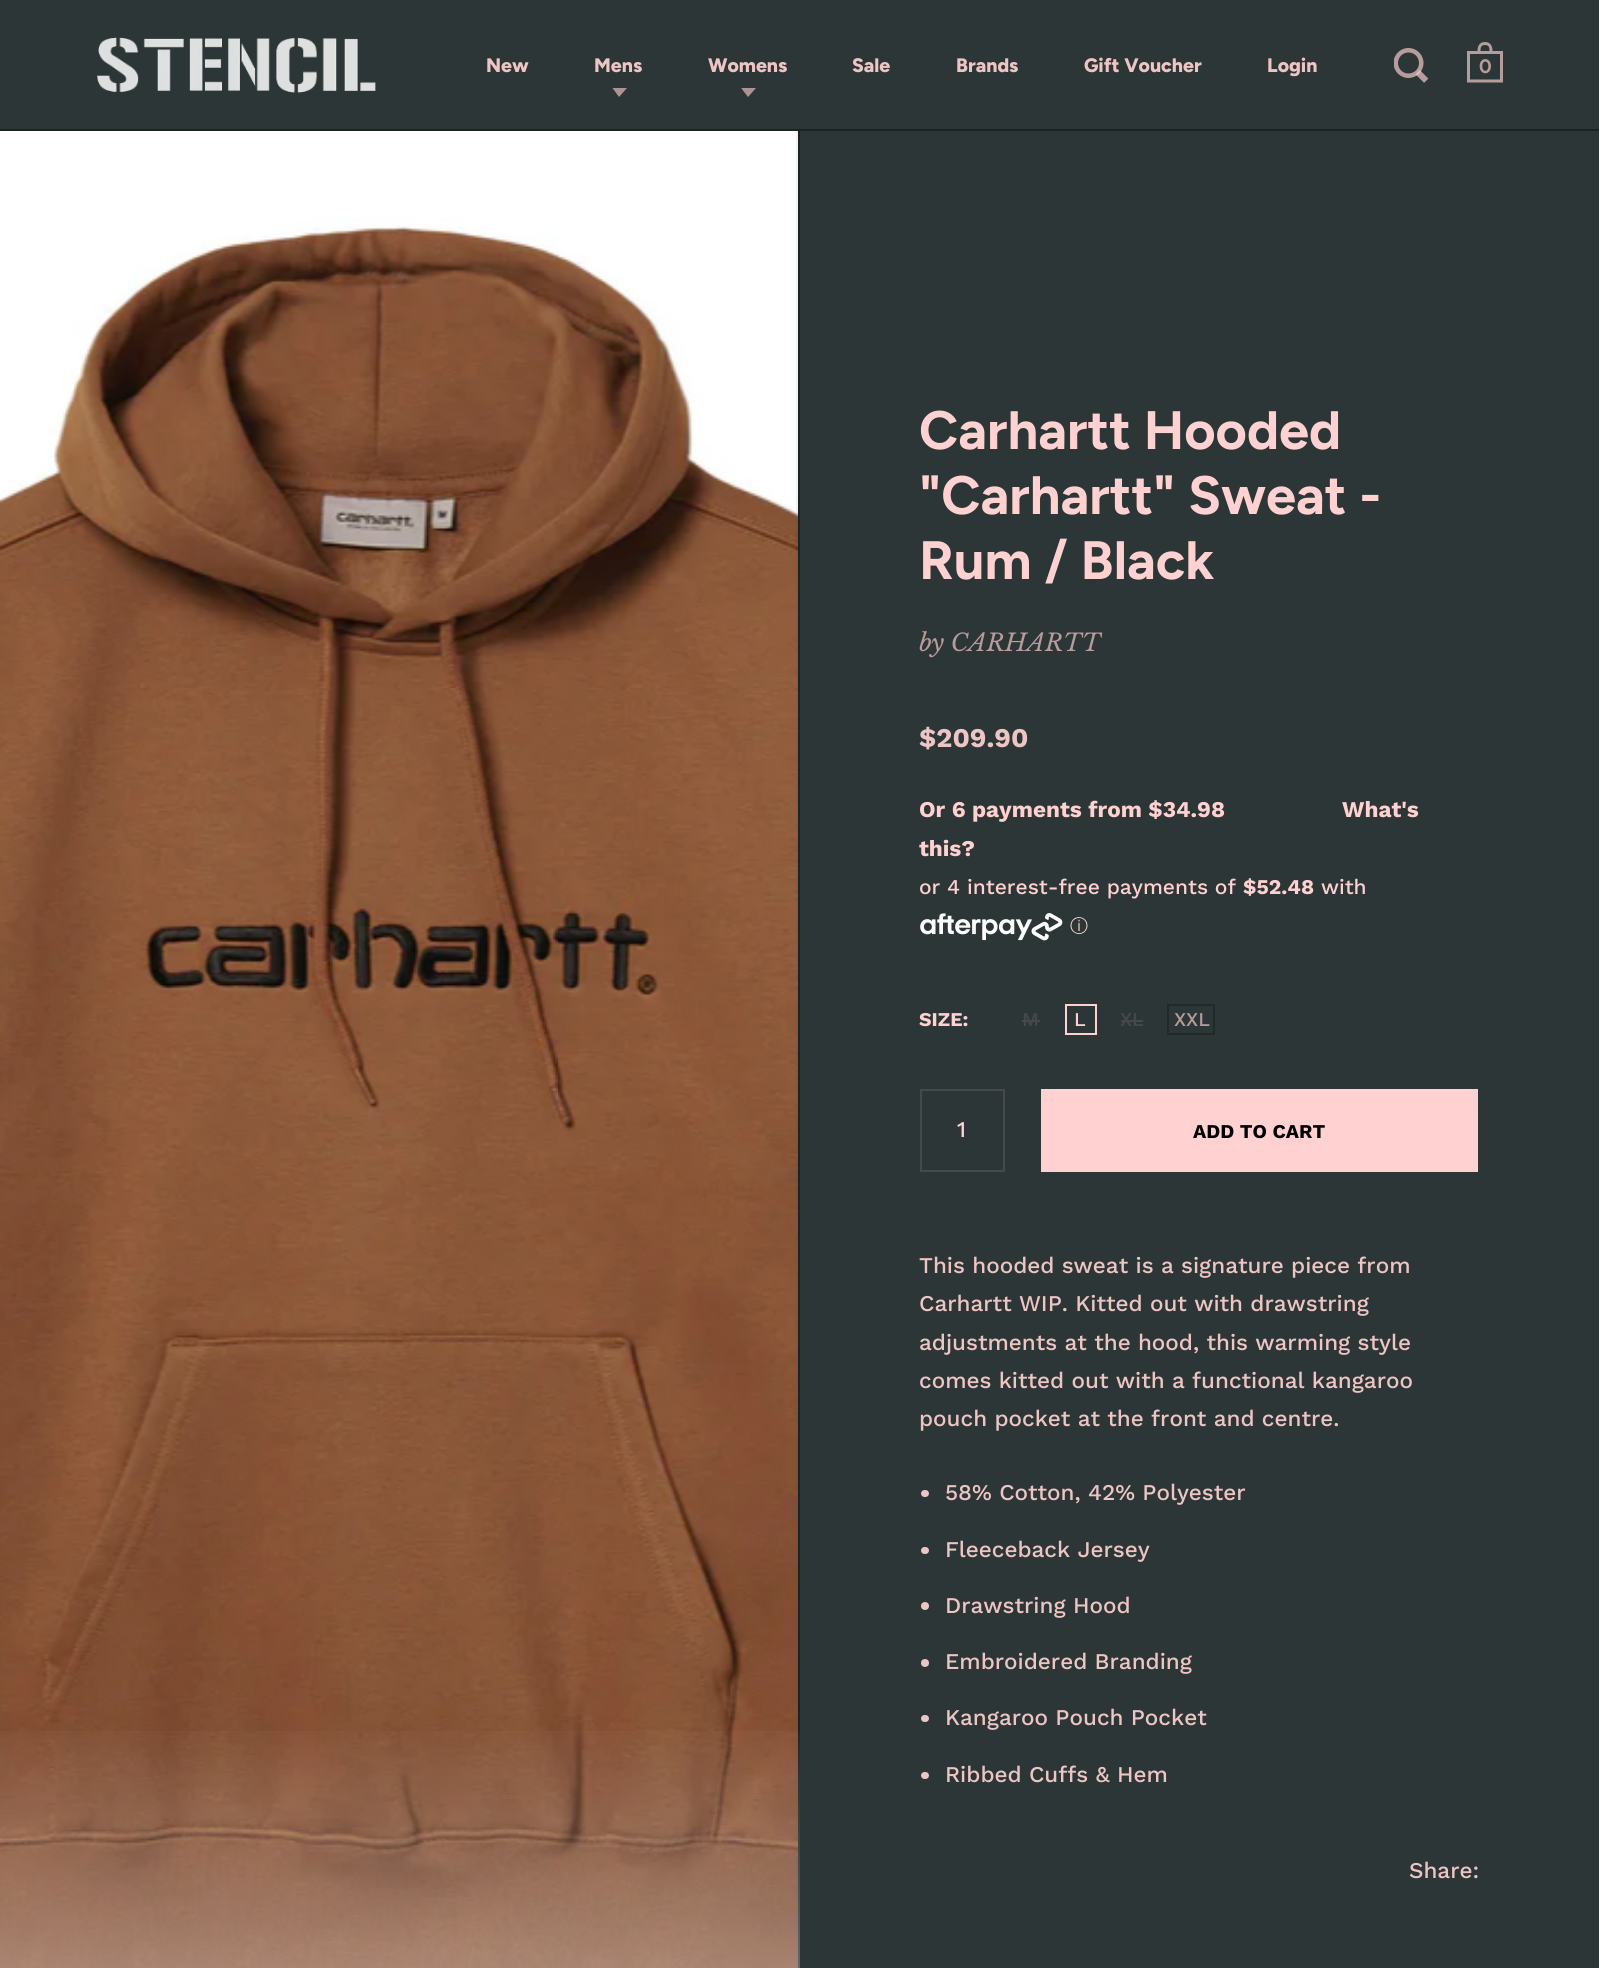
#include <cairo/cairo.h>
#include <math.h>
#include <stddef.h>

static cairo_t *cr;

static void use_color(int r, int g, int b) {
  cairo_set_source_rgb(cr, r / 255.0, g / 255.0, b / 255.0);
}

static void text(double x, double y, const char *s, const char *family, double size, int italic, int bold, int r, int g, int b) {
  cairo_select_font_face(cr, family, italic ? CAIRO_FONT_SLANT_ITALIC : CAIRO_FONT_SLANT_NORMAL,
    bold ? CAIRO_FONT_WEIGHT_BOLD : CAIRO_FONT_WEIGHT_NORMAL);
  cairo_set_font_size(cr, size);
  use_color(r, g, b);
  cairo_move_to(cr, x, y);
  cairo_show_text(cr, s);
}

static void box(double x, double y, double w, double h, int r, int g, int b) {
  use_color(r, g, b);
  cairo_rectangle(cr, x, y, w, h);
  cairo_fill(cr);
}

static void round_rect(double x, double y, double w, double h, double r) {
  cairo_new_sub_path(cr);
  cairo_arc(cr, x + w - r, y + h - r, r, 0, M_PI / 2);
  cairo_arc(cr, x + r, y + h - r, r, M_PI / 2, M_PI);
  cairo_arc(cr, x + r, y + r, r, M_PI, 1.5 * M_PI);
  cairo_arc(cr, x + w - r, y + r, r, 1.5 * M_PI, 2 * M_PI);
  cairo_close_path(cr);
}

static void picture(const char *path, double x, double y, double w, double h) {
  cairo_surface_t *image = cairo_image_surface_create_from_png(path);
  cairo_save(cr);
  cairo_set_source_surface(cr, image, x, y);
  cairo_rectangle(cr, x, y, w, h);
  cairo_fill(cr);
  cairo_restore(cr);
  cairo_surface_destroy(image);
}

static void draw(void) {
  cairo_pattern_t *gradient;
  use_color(45, 54, 54);
  cairo_paint(cr);
  box(0, 129, 1599, 2, 29, 35, 35);
  picture("img_01.png", 97, 37, 279, 56);
  use_color(173, 148, 148);
  cairo_new_path(cr);
  cairo_move_to(cr, 627, 88);
  cairo_line_to(cr, 619, 97);
  cairo_line_to(cr, 612.5, 88);
  cairo_close_path(cr);
  cairo_fill(cr);
  cairo_new_path(cr);
  cairo_move_to(cr, 756, 88);
  cairo_line_to(cr, 748, 97);
  cairo_line_to(cr, 741.5, 88.5);
  cairo_line_to(cr, 741.5, 88);
  cairo_close_path(cr);
  cairo_fill(cr);
  picture("img_02.png", 1394, 48, 35, 35);
  picture("img_03.png", 1467, 42, 36, 41);
  picture("img_04.png", 0, 131, 798, 1837);
  box(798, 131, 2, 1837, 29, 35, 35);
  gradient = cairo_pattern_create_linear(400, 1713, 400, 1968);
  cairo_pattern_add_color_stop_rgba(gradient, 0, 1, 1, 1, 0);
  cairo_pattern_add_color_stop_rgba(gradient, 1, 1, 1, 1, 0.3);
  cairo_set_source(cr, gradient);
  cairo_pattern_destroy(gradient);
  cairo_rectangle(cr, 0, 1731, 800, 237);
  cairo_fill(cr);
  picture("img_05.png", 920, 913, 143, 28);
  box(1022, 1020, 18, 2, 70, 73, 73);
  cairo_rectangle(cr, 1066, 1005, 30, 29);
  use_color(255, 209, 209);
  cairo_stroke(cr);
  box(1121, 1020, 22, 2, 70, 73, 73);
  cairo_rectangle(cr, 1168, 1005, 46, 29);
  use_color(34, 41, 41);
  cairo_stroke(cr);
  cairo_rectangle(cr, 921, 1090, 83, 81);
  use_color(70, 73, 73);
  cairo_stroke(cr);
  box(1041, 1089, 437, 83, 255, 209, 209);
  use_color(238, 197, 197);
  round_rect(921, 1490, 8, 7, 3.5);
  cairo_fill(cr);
  round_rect(921, 1547, 8, 7, 3.5);
  cairo_fill(cr);
  cairo_arc(cr, 925, 1606, 4, 0, 2 * M_PI);
  cairo_fill(cr);
  cairo_arc(cr, 925, 1663, 4, 0, 2 * M_PI);
  cairo_fill(cr);
  round_rect(921, 1715, 8, 7, 3.5);
  cairo_fill(cr);
  round_rect(921, 1772, 8, 7, 3.5);
  cairo_fill(cr);
  text(486, 72, "New", "Figtree ExtraBold", 19.5, 0, 0, 238, 197, 197);
  text(594, 72, "Mens", "Figtree ExtraBold", 19.5, 0, 0, 238, 197, 197);
  text(708, 72, "Womens", "Figtree ExtraBold", 19.5, 0, 0, 238, 197, 197);
  text(852, 72, "Sale", "Figtree ExtraBold", 19.5, 0, 0, 238, 197, 197);
  text(956, 72, "Brands", "Figtree ExtraBold", 19.5, 0, 0, 238, 197, 197);
  text(1084, 72, "Gift Voucher", "Figtree ExtraBold", 19.5, 0, 0, 238, 197, 197);
  text(1267, 72, "Login", "Figtree ExtraBold", 19.5, 0, 0, 238, 197, 197);
  text(1479, 73, "0", "Figtree", 19.5, 0, 1, 184, 156, 156);
  text(919, 449, "Carhartt Hooded", "Figtree", 54, 0, 1, 255, 209, 209);
  text(919, 514, "\"Carhartt\" Sweat -", "Figtree", 54, 0, 1, 255, 209, 209);
  text(919, 579, "Rum / Black", "Figtree", 54, 0, 1, 255, 209, 209);
  text(919, 651, "by CARHARTT", "Libre Baskerville", 24, 1, 0, 184, 156, 156);
  text(919, 747, "$209.90", "Work Sans", 27, 0, 1, 238, 197, 197);
  text(919, 817, "Or 6 payments from $34.98", "Work Sans", 22.5, 0, 1, 255, 209, 209);
  text(1342, 817, "What's", "Work Sans", 22.5, 0, 1, 255, 209, 209);
  text(919, 856, "this?", "Work Sans", 22.5, 0, 1, 255, 209, 209);
  text(919, 894, "or 4 interest-free payments of", "Work Sans Medium", 21, 0, 0, 255, 209, 209);
  text(1243, 894, "$52.48", "Work Sans", 21, 0, 1, 255, 209, 209);
  text(1321, 894, "with", "Work Sans Medium", 21, 0, 0, 255, 209, 209);
  text(1070, 932, "ⓘ", "WenQuanYi Zen Hei Medium", 18, 0, 0, 255, 209, 209);
  text(919, 1026, "SIZE:", "Work Sans", 19.5, 0, 1, 255, 209, 209);
  text(1022, 1026, "M", "Work Sans Medium", 19.5, 0, 0, 70, 73, 73);
  text(1074, 1026, "L", "Work Sans Medium", 19.5, 0, 0, 255, 209, 209);
  text(1120, 1026, "XL", "Work Sans Medium", 19.5, 0, 0, 70, 73, 73);
  text(1174, 1026, "XXL", "Work Sans Medium", 19.5, 0, 0, 184, 156, 156);
  text(957, 1137, "1", "Work Sans Medium", 22.5, 0, 0, 255, 209, 209);
  text(1193, 1138, "ADD TO CART", "Work Sans", 19.5, 0, 1, 0, 0, 0);
  text(919, 1273, "This hooded sweat is a signature piece from", "Work Sans Medium", 22.5, 0, 0, 238, 197, 197);
  text(919, 1311, "Carhartt WIP. Kitted out with drawstring", "Work Sans Medium", 22.5, 0, 0, 238, 197, 197);
  text(919, 1350, "adjustments at the hood, this warming style", "Work Sans Medium", 22.5, 0, 0, 238, 197, 197);
  text(919, 1388, "comes kitted out with a functional kangaroo", "Work Sans Medium", 22.5, 0, 0, 238, 197, 197);
  text(919, 1426, "pouch pocket at the front and centre.", "Work Sans Medium", 22.5, 0, 0, 238, 197, 197);
  text(945, 1500, "58% Cotton, 42% Polyester", "Work Sans Medium", 22.5, 0, 0, 238, 197, 197);
  text(945, 1557, "Fleeceback Jersey", "Work Sans Medium", 22.5, 0, 0, 238, 197, 197);
  text(945, 1613, "Drawstring Hood", "Work Sans Medium", 22.5, 0, 0, 238, 197, 197);
  text(945, 1669, "Embroidered Branding", "Work Sans Medium", 22.5, 0, 0, 238, 197, 197);
  text(945, 1725, "Kangaroo Pouch Pocket", "Work Sans Medium", 22.5, 0, 0, 238, 197, 197);
  text(945, 1782, "Ribbed Cuffs & Hem", "Work Sans Medium", 22.5, 0, 0, 238, 197, 197);
  text(1409, 1878, "Share:", "Work Sans Medium", 22.5, 0, 0, 238, 197, 197);
}

int main(void) {
  cairo_surface_t *surface = cairo_image_surface_create(CAIRO_FORMAT_RGB24, 1599, 1968);
  cr = cairo_create(surface);
  cairo_font_options_t *options = cairo_font_options_create();
  cairo_font_options_set_hint_metrics(options, CAIRO_HINT_METRICS_OFF);
  cairo_font_options_set_hint_style(options, CAIRO_HINT_STYLE_NONE);
  cairo_set_font_options(cr, options);
  cairo_set_miter_limit(cr, 4);
  draw();
  cairo_surface_write_to_png(surface, "out.png");
  cairo_font_options_destroy(options);
  cairo_destroy(cr);
  cairo_surface_destroy(surface);
  return 0;
}
